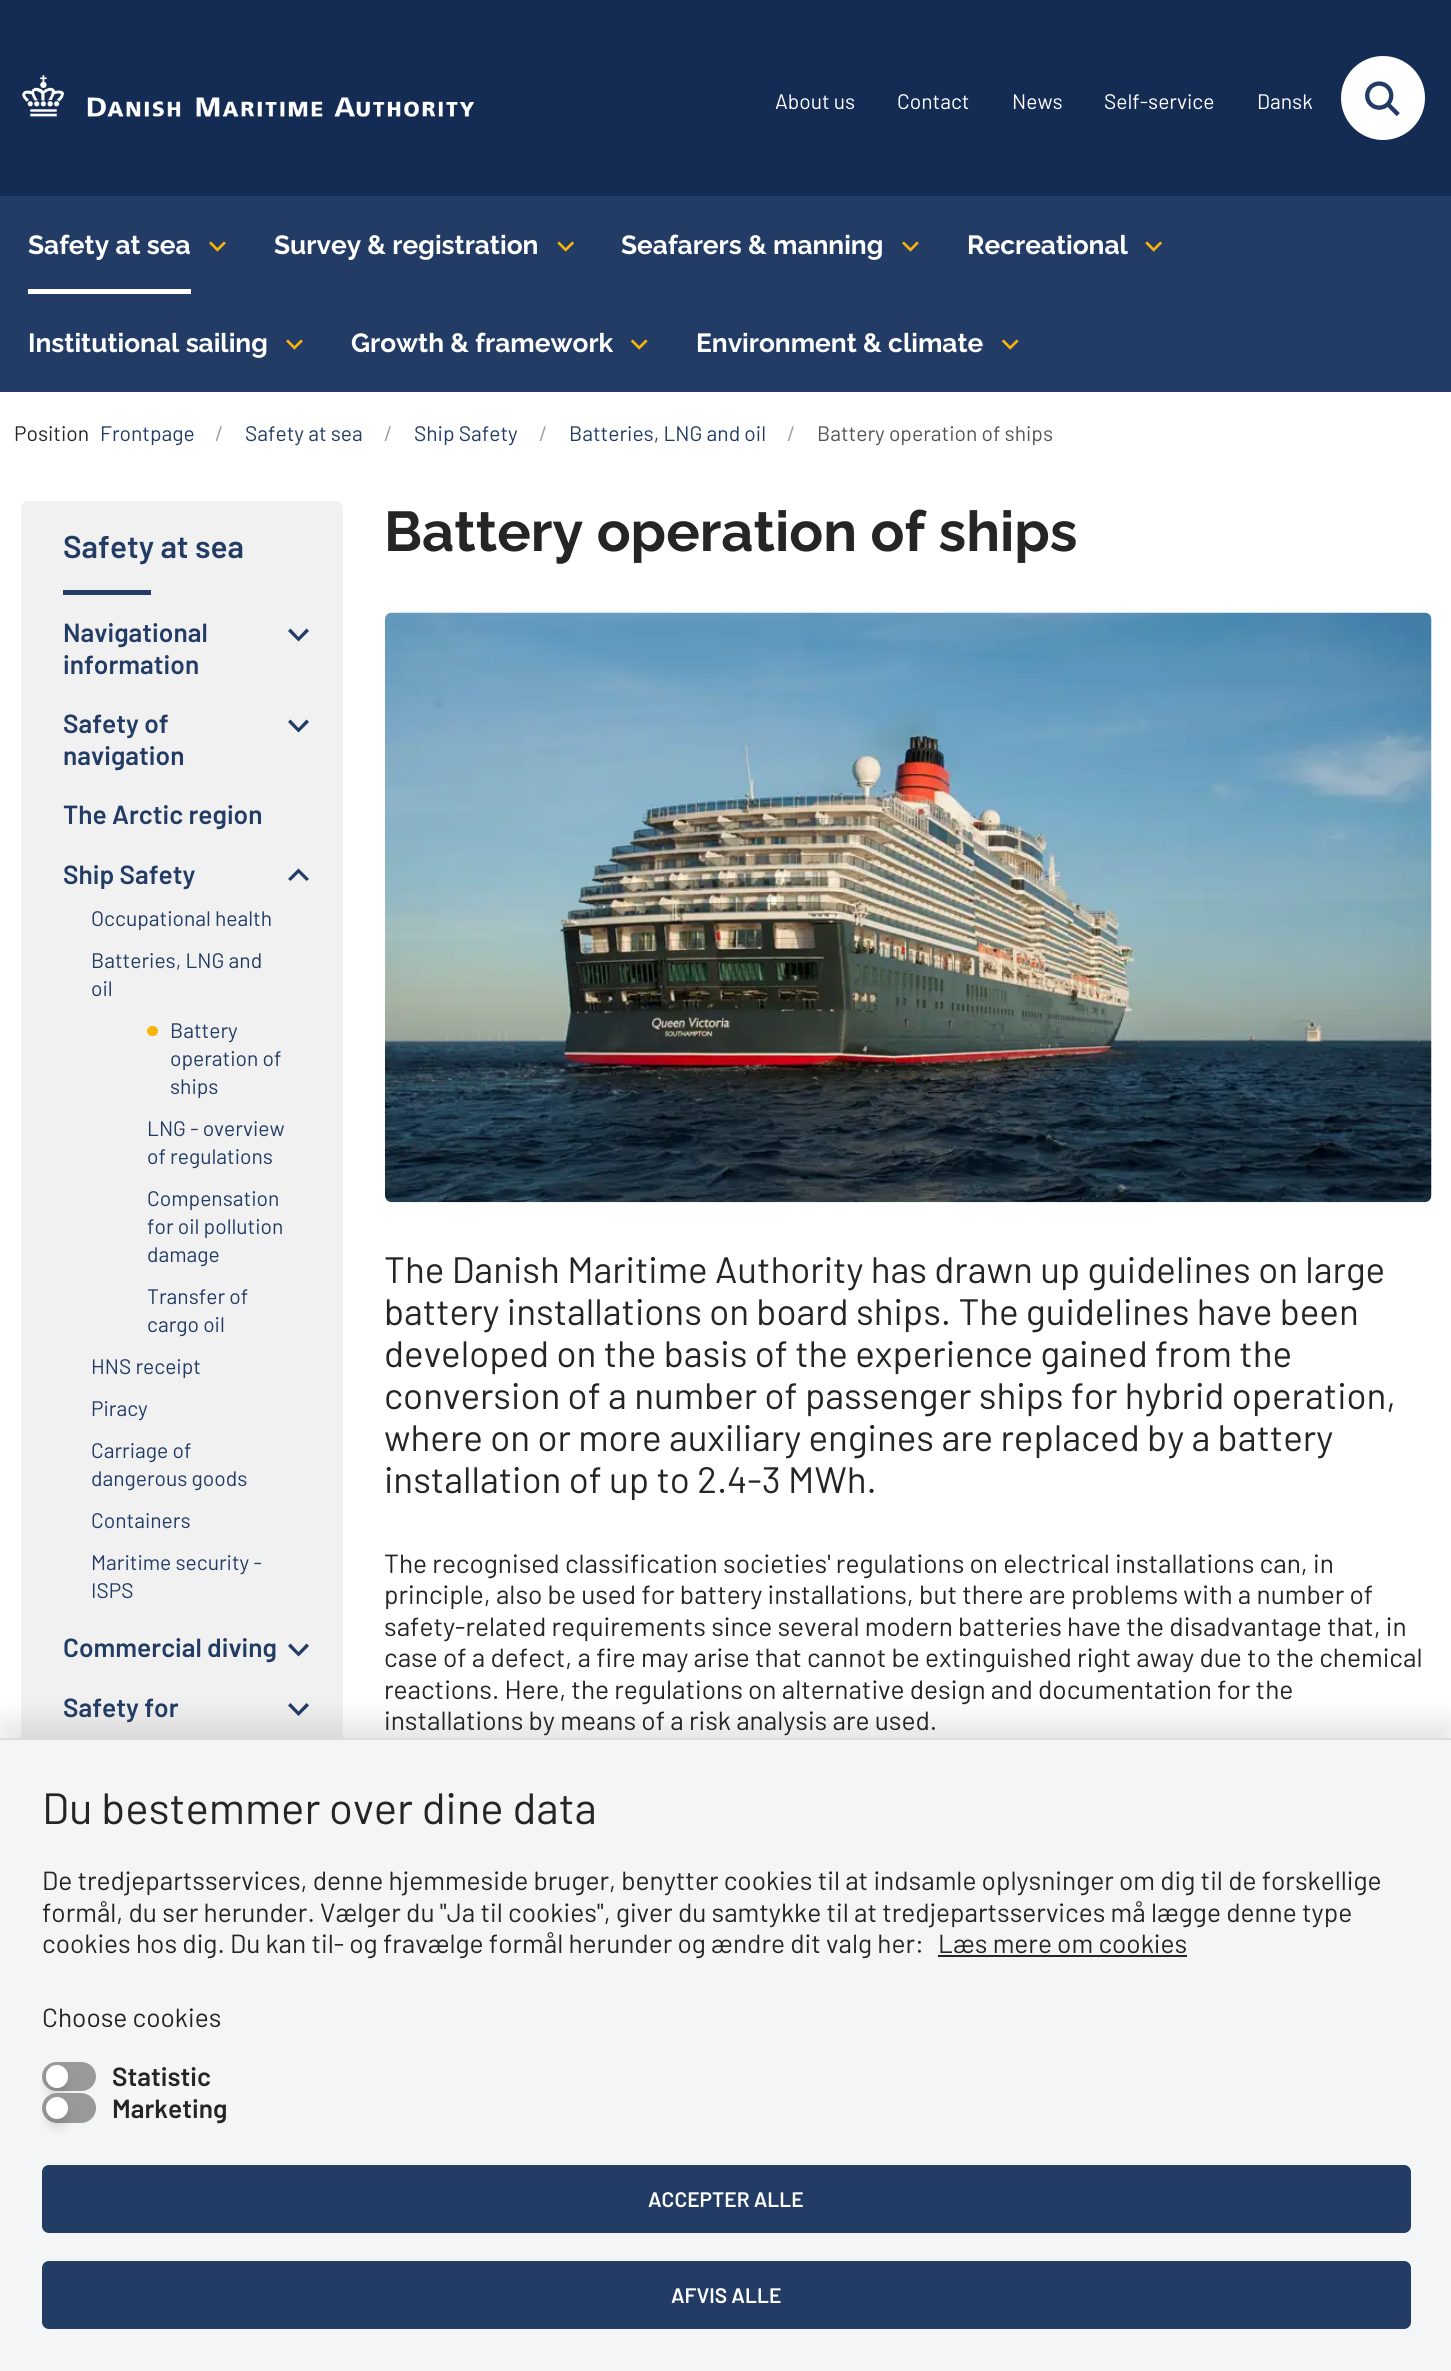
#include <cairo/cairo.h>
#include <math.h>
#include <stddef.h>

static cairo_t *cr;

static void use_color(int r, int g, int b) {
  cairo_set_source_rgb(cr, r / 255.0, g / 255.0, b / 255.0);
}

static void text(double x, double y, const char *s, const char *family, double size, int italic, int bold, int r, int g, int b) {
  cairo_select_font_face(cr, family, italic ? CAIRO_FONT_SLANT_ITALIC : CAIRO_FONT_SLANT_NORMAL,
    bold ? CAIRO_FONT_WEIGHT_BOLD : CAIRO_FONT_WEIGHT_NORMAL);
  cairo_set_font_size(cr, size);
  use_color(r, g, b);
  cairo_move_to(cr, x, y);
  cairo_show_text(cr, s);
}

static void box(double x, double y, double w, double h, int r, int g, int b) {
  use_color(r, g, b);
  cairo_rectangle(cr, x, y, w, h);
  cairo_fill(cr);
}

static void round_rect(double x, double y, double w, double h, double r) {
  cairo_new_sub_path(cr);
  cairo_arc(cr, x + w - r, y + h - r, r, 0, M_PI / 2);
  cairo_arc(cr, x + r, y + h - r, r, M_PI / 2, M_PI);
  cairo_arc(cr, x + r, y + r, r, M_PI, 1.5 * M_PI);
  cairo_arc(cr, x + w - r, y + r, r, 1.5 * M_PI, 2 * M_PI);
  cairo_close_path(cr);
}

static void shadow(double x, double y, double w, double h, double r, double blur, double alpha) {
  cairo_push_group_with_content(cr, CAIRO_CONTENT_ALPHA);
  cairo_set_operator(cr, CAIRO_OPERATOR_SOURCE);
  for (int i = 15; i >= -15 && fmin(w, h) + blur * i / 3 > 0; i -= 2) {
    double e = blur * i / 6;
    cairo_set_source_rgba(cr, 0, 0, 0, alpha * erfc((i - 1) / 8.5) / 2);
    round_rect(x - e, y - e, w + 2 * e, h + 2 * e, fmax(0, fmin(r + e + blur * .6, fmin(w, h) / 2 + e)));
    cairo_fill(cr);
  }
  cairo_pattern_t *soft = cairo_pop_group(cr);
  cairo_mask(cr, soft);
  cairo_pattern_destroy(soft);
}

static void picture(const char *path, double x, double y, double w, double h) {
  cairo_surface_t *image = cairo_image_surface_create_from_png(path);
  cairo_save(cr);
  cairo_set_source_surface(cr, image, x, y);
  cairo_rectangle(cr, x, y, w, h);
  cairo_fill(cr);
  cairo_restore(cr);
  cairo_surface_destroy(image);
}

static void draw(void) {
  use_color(255, 255, 255);
  cairo_paint(cr);
  box(0, 0, 1451, 196, 20, 44, 84);
  picture("img_01.png", 22, 74, 453, 43);
  use_color(255, 255, 255);
  cairo_arc(cr, 1383, 98, 42, 0, 2 * M_PI);
  cairo_fill(cr);
  picture("img_02.png", 1365, 81, 35, 36);
  box(0, 196, 1451, 196, 35, 60, 101);
  box(28, 289, 163, 5, 255, 255, 255);
  picture("img_03.png", 209, 241, 17, 11);
  picture("img_04.png", 557, 241, 17, 11);
  picture("img_03.png", 902, 241, 17, 11);
  picture("img_04.png", 1145, 241, 17, 11);
  picture("img_03.png", 286, 339, 17, 11);
  picture("img_05.png", 630, 339, 18, 11);
  picture("img_05.png", 1001, 339, 18, 11);
  use_color(241, 241, 241);
  round_rect(21, 501, 322, 1529, 7);
  cairo_fill(cr);
  box(63, 590, 88, 5, 35, 60, 101);
  cairo_new_path(cr);
  cairo_move_to(cr, 298.5, 641.5);
  cairo_line_to(cr, 309, 631);
  cairo_line_to(cr, 306.5, 628.5);
  cairo_line_to(cr, 298.5, 637);
  cairo_line_to(cr, 290.5, 628.5);
  cairo_line_to(cr, 288, 631);
  cairo_close_path(cr);
  cairo_fill(cr);
  cairo_new_path(cr);
  cairo_move_to(cr, 298.5, 732.5);
  cairo_line_to(cr, 309, 722);
  cairo_line_to(cr, 306.5, 719.5);
  cairo_line_to(cr, 298.5, 728);
  cairo_line_to(cr, 290.5, 719.5);
  cairo_line_to(cr, 288, 722);
  cairo_close_path(cr);
  cairo_fill(cr);
  cairo_new_path(cr);
  cairo_move_to(cr, 298.5, 868.5);
  cairo_line_to(cr, 309, 879);
  cairo_line_to(cr, 306.5, 881);
  cairo_line_to(cr, 298.5, 873);
  cairo_line_to(cr, 290.5, 881);
  cairo_line_to(cr, 288, 879);
  cairo_close_path(cr);
  cairo_fill(cr);
  use_color(250, 179, 12);
  round_rect(147, 1026, 11, 10, 5);
  cairo_fill(cr);
  use_color(35, 60, 101);
  cairo_new_path(cr);
  cairo_move_to(cr, 298.5, 1656.5);
  cairo_line_to(cr, 309, 1646);
  cairo_line_to(cr, 306.5, 1643.5);
  cairo_line_to(cr, 298.5, 1652);
  cairo_line_to(cr, 290.5, 1643.5);
  cairo_line_to(cr, 288, 1646);
  cairo_close_path(cr);
  cairo_fill(cr);
  cairo_new_path(cr);
  cairo_move_to(cr, 298.5, 1716);
  cairo_line_to(cr, 309, 1705.5);
  cairo_line_to(cr, 306.5, 1703);
  cairo_line_to(cr, 298.5, 1711.5);
  cairo_line_to(cr, 290.5, 1703);
  cairo_line_to(cr, 288, 1705.5);
  cairo_close_path(cr);
  cairo_fill(cr);
  picture("img_06.png", 385, 612, 1047, 591);
  use_color(0, 0, 0);
  shadow(0, 1720, 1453, 634, 0, 13, 0.1);
  box(0, 1740, 1451, 631, 244, 245, 247);
  box(0, 1738, 1451, 2, 221, 221, 221);
  box(938, 1955, 249, 2, 37, 37, 37);
  use_color(153, 153, 153);
  round_rect(42, 2062, 54, 29, 14.5);
  cairo_fill(cr);
  use_color(0, 0, 0);
  shadow(46, 2074, 22, 23, 11, 4.5, 0.1);
  use_color(255, 255, 255);
  round_rect(46, 2065, 22, 23, 11);
  cairo_fill(cr);
  use_color(153, 153, 153);
  round_rect(42, 2093, 54, 30, 15);
  cairo_fill(cr);
  use_color(0, 0, 0);
  shadow(46, 2105, 22, 23, 11, 4.5, 0.1);
  use_color(255, 255, 255);
  cairo_arc(cr, 57, 2108, 11, 0, 2 * M_PI);
  cairo_fill(cr);
  use_color(35, 60, 101);
  round_rect(42, 2165, 1369, 68, 7);
  cairo_fill(cr);
  round_rect(42, 2261, 1369, 68, 7);
  cairo_fill(cr);
  text(775, 109, "About us", "Barlow", 21, 0, 0, 255, 255, 255);
  text(897, 109, "Contact", "Barlow", 21, 0, 0, 255, 255, 255);
  text(1012, 109, "News", "Barlow", 21, 0, 0, 255, 255, 255);
  text(1104, 109, "Self-service", "Barlow", 21, 0, 0, 255, 255, 255);
  text(1257, 109, "Dansk", "Barlow", 21, 0, 0, 255, 255, 255);
  text(28, 254, "Safety at sea", "Raleway", 26.25, 0, 1, 255, 255, 255);
  text(274, 254, "Survey & registration", "Raleway", 26.25, 0, 1, 255, 255, 255);
  text(621, 254, "Seafarers & manning", "Raleway", 26.25, 0, 1, 255, 255, 255);
  text(967, 254, "Recreational", "Raleway", 26.25, 0, 1, 255, 255, 255);
  text(28, 352, "Institutional sailing", "Raleway", 26.25, 0, 1, 255, 255, 255);
  text(351, 352, "Growth & framework", "Raleway", 26.25, 0, 1, 255, 255, 255);
  text(696, 352, "Environment & climate", "Raleway", 26.25, 0, 1, 255, 255, 255);
  text(14, 441, "Position", "Barlow", 21, 0, 0, 37, 37, 37);
  text(100, 441, "Frontpage", "Barlow", 21, 0, 0, 35, 60, 101);
  text(215, 441, "/", "Barlow", 21, 0, 0, 153, 153, 153);
  text(245, 441, "Safety at sea", "Barlow", 21, 0, 0, 35, 60, 101);
  text(384, 441, "/", "Barlow", 21, 0, 0, 153, 153, 153);
  text(414, 441, "Ship Safety", "Barlow", 21, 0, 0, 35, 60, 101);
  text(539, 441, "/", "Barlow", 21, 0, 0, 153, 153, 153);
  text(569, 441, "Batteries, LNG and oil", "Barlow", 21, 0, 0, 35, 60, 101);
  text(787, 441, "/", "Barlow", 21, 0, 0, 153, 153, 153);
  text(817, 441, "Battery operation of ships", "Barlow", 21, 0, 0, 85, 85, 85);
  text(63, 558, "Safety at sea", "Barlow SemiBold", 31.5, 0, 0, 35, 60, 101);
  text(63, 642, "Navigational", "Barlow SemiBold", 26.25, 0, 0, 35, 60, 101);
  text(63, 674, "information", "Barlow SemiBold", 26.25, 0, 0, 35, 60, 101);
  text(63, 733, "Safety of", "Barlow SemiBold", 26.25, 0, 0, 35, 60, 101);
  text(63, 765, "navigation", "Barlow SemiBold", 26.25, 0, 0, 35, 60, 101);
  text(63, 824, "The Arctic region", "Barlow SemiBold", 26.25, 0, 0, 35, 60, 101);
  text(63, 884, "Ship Safety", "Barlow SemiBold", 26.25, 0, 0, 35, 60, 101);
  text(91, 926, "Occupational health", "Barlow", 21, 0, 0, 35, 60, 101);
  text(91, 968, "Batteries, LNG and", "Barlow", 21, 0, 0, 35, 60, 101);
  text(91, 996, "oil", "Barlow", 21, 0, 0, 35, 60, 101);
  text(170, 1038, "Battery", "Barlow", 21, 0, 0, 35, 60, 101);
  text(170, 1066, "operation of", "Barlow", 21, 0, 0, 35, 60, 101);
  text(170, 1094, "ships", "Barlow", 21, 0, 0, 35, 60, 101);
  text(147, 1136, "LNG - overview", "Barlow", 21, 0, 0, 35, 60, 101);
  text(147, 1164, "of regulations", "Barlow", 21, 0, 0, 35, 60, 101);
  text(147, 1206, "Compensation", "Barlow", 21, 0, 0, 35, 60, 101);
  text(147, 1234, "for oil pollution", "Barlow", 21, 0, 0, 35, 60, 101);
  text(147, 1262, "damage", "Barlow", 21, 0, 0, 35, 60, 101);
  text(147, 1304, "Transfer of", "Barlow", 21, 0, 0, 35, 60, 101);
  text(147, 1332, "cargo oil", "Barlow", 21, 0, 0, 35, 60, 101);
  text(91, 1374, "HNS receipt", "Barlow", 21, 0, 0, 35, 60, 101);
  text(91, 1416, "Piracy", "Barlow", 21, 0, 0, 35, 60, 101);
  text(91, 1458, "Carriage of", "Barlow", 21, 0, 0, 35, 60, 101);
  text(91, 1486, "dangerous goods", "Barlow", 21, 0, 0, 35, 60, 101);
  text(91, 1528, "Containers", "Barlow", 21, 0, 0, 35, 60, 101);
  text(91, 1570, "Maritime security -", "Barlow", 21, 0, 0, 35, 60, 101);
  text(91, 1598, "ISPS", "Barlow", 21, 0, 0, 35, 60, 101);
  text(63, 1657, "Commercial diving", "Barlow SemiBold", 26.25, 0, 0, 35, 60, 101);
  text(63, 1717, "Safety for", "Barlow SemiBold", 26.25, 0, 0, 35, 60, 101);
  text(384, 551, "Battery operation of ships", "Raleway", 56, 0, 1, 37, 37, 37);
  text(384, 1283, "The Danish Maritime Authority has drawn up guidelines on large", "Barlow", 36.75, 0, 0, 37, 37, 37);
  text(384, 1325, "battery installations on board ships. The guidelines have been", "Barlow", 36.75, 0, 0, 37, 37, 37);
  text(384, 1367, "developed on the basis of the experience gained from the", "Barlow", 36.75, 0, 0, 37, 37, 37);
  text(384, 1409, "conversion of a number of passenger ships for hybrid operation,", "Barlow", 36.75, 0, 0, 37, 37, 37);
  text(384, 1451, "where on or more auxiliary engines are replaced by a battery", "Barlow", 36.75, 0, 0, 37, 37, 37);
  text(384, 1493, "installation of up to 2.4-3 MWh.", "Barlow", 36.75, 0, 0, 37, 37, 37);
  text(384, 1573, "The recognised classification societies' regulations on electrical installations can, in", "Barlow", 26.25, 0, 0, 37, 37, 37);
  text(384, 1604, "principle, also be used for battery installations, but there are problems with a number of", "Barlow", 26.25, 0, 0, 37, 37, 37);
  text(384, 1636, "safety-related requirements since several modern batteries have the disadvantage that, in", "Barlow", 26.25, 0, 0, 37, 37, 37);
  text(384, 1667, "case of a defect, a fire may arise that cannot be extinguished right away due to the chemical", "Barlow", 26.25, 0, 0, 37, 37, 37);
  text(384, 1699, "reactions. Here, the regulations on alternative design and documentation for the", "Barlow", 26.25, 0, 0, 37, 37, 37);
  text(384, 1730, "installations by means of a risk analysis are used.", "Barlow", 26.25, 0, 0, 37, 37, 37);
  text(42, 1824, "Du bestemmer over dine data", "Barlow", 43.75, 0, 0, 37, 37, 37);
  text(42, 1890, "De tredjepartsservices, denne hjemmeside bruger, benytter cookies til at indsamle oplysninger om dig til de forskellige", "Barlow", 26.25, 0, 0, 37, 37, 37);
  text(42, 1922, "formål, du ser herunder. Vælger du ''Ja til cookies'', giver du samtykke til at tredjepartsservices må lægge denne type", "Barlow", 26.25, 0, 0, 37, 37, 37);
  text(42, 1953, "cookies hos dig. Du kan til- og fravælge formål herunder og ændre dit valg her:", "Barlow", 26.25, 0, 0, 37, 37, 37);
  text(938, 1953, "Læs mere om cookies", "Barlow", 26.25, 0, 0, 37, 37, 37);
  text(42, 2027, "Choose cookies", "Barlow", 26.25, 0, 0, 37, 37, 37);
  text(112, 2086, "Statistic", "Barlow SemiBold", 26.25, 0, 0, 37, 37, 37);
  text(112, 2118, "Marketing", "Barlow SemiBold", 26.25, 0, 0, 37, 37, 37);
  text(648, 2207, "ACCEPTER ALLE", "Barlow SemiBold", 21, 0, 0, 255, 255, 255);
  text(671, 2303, "AFVIS ALLE", "Barlow SemiBold", 21, 0, 0, 255, 255, 255);
}

int main(void) {
  cairo_surface_t *surface = cairo_image_surface_create(CAIRO_FORMAT_RGB24, 1451, 2371);
  cr = cairo_create(surface);
  cairo_font_options_t *options = cairo_font_options_create();
  cairo_font_options_set_hint_metrics(options, CAIRO_HINT_METRICS_OFF);
  cairo_font_options_set_hint_style(options, CAIRO_HINT_STYLE_NONE);
  cairo_set_font_options(cr, options);
  cairo_set_miter_limit(cr, 4);
  draw();
  cairo_surface_write_to_png(surface, "out.png");
  cairo_font_options_destroy(options);
  cairo_destroy(cr);
  cairo_surface_destroy(surface);
  return 0;
}
